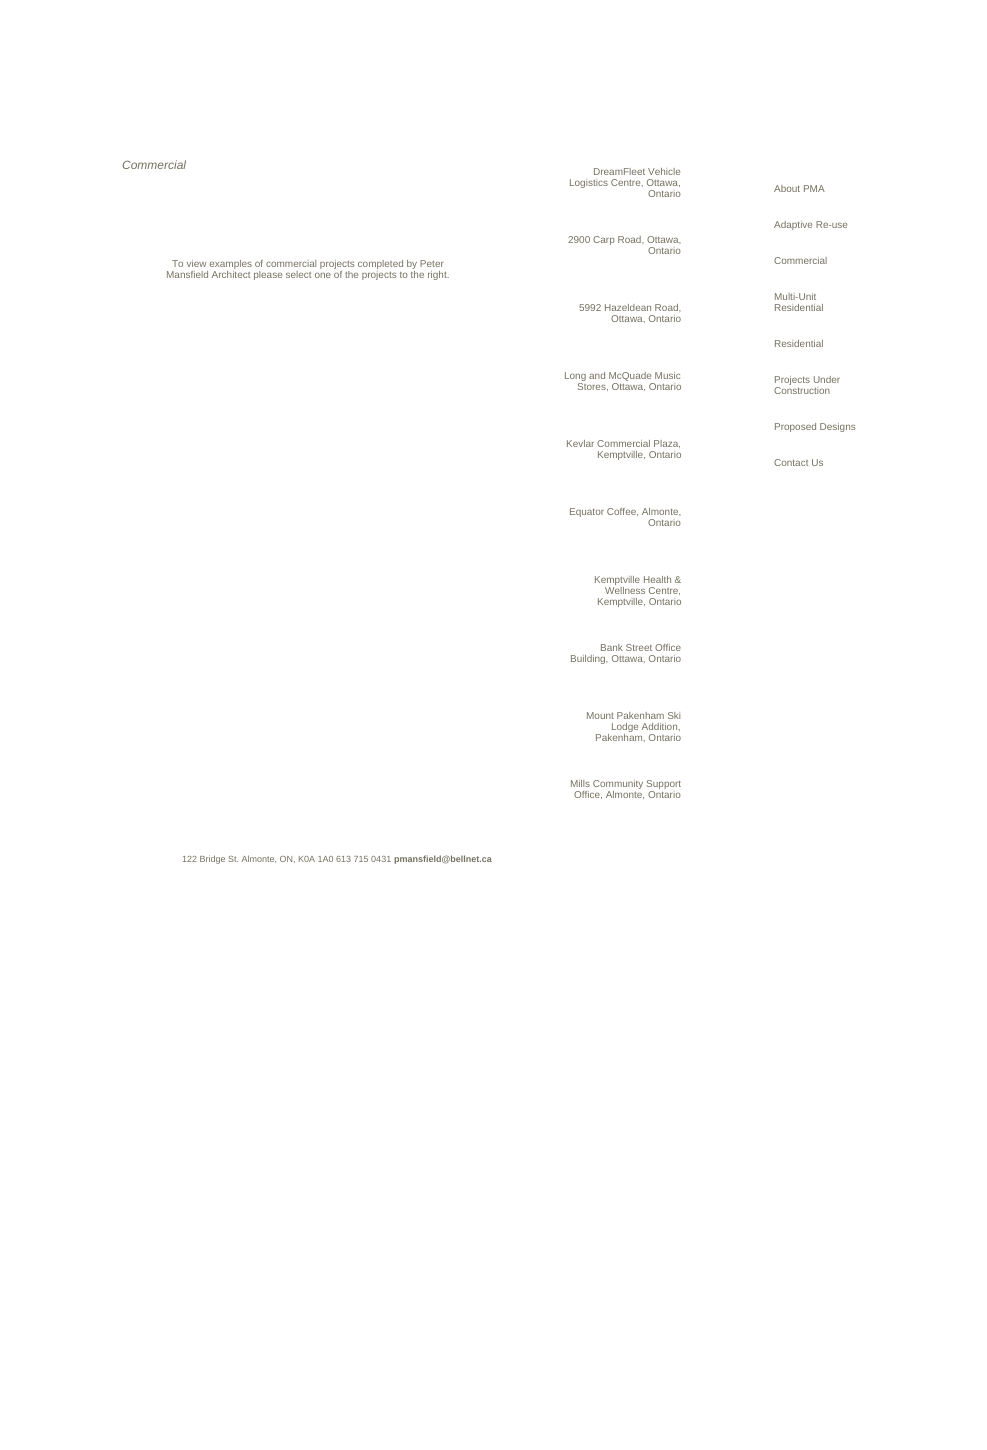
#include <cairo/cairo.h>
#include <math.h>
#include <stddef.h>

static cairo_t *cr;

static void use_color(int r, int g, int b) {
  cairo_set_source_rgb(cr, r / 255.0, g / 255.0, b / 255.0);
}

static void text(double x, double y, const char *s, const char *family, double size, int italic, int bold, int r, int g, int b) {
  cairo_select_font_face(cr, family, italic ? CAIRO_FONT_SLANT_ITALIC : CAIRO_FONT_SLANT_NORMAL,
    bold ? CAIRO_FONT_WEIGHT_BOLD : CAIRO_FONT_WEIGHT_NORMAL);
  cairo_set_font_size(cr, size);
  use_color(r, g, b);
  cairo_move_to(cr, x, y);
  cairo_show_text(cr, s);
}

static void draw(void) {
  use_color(255, 255, 255);
  cairo_paint(cr);
  text(122, 169, "Commercial", "Liberation Sans", 12, 1, 0, 117, 113, 96);
  text(172, 267, "To view examples of commercial projects completed by Peter", "Liberation Sans", 10, 0, 0, 117, 113, 96);
  text(166, 278, "Mansfield Architect please select one of the projects to the right.", "Liberation Sans", 10, 0, 0, 117, 113, 96);
  text(593, 175, "DreamFleet Vehicle", "Liberation Sans", 10, 0, 0, 117, 113, 96);
  text(569, 186, "Logistics Centre, Ottawa,", "Liberation Sans", 10, 0, 0, 117, 113, 96);
  text(648, 197, "Ontario", "Liberation Sans", 10, 0, 0, 117, 113, 96);
  text(568, 243, "2900 Carp Road, Ottawa,", "Liberation Sans", 10, 0, 0, 117, 113, 96);
  text(648, 254, "Ontario", "Liberation Sans", 10, 0, 0, 117, 113, 96);
  text(579, 311, "5992 Hazeldean Road,", "Liberation Sans", 10, 0, 0, 117, 113, 96);
  text(611, 322, "Ottawa, Ontario", "Liberation Sans", 10, 0, 0, 117, 113, 96);
  text(564, 379, "Long and McQuade Music", "Liberation Sans", 10, 0, 0, 117, 113, 96);
  text(577, 390, "Stores, Ottawa, Ontario", "Liberation Sans", 10, 0, 0, 117, 113, 96);
  text(566, 447, "Kevlar Commercial Plaza,", "Liberation Sans", 10, 0, 0, 117, 113, 96);
  text(597, 458, "Kemptville, Ontario", "Liberation Sans", 10, 0, 0, 117, 113, 96);
  text(569, 515, "Equator Coffee, Almonte,", "Liberation Sans", 10, 0, 0, 117, 113, 96);
  text(648, 526, "Ontario", "Liberation Sans", 10, 0, 0, 117, 113, 96);
  text(594, 583, "Kemptville Health &", "Liberation Sans", 10, 0, 0, 117, 113, 96);
  text(605, 594, "Wellness Centre,", "Liberation Sans", 10, 0, 0, 117, 113, 96);
  text(597, 605, "Kemptville, Ontario", "Liberation Sans", 10, 0, 0, 117, 113, 96);
  text(600, 651, "Bank Street Office", "Liberation Sans", 10, 0, 0, 117, 113, 96);
  text(570, 662, "Building, Ottawa, Ontario", "Liberation Sans", 10, 0, 0, 117, 113, 96);
  text(586, 719, "Mount Pakenham Ski", "Liberation Sans", 10, 0, 0, 117, 113, 96);
  text(611, 730, "Lodge Addition,", "Liberation Sans", 10, 0, 0, 117, 113, 96);
  text(595, 741, "Pakenham, Ontario", "Liberation Sans", 10, 0, 0, 117, 113, 96);
  text(570, 787, "Mills Community Support", "Liberation Sans", 10, 0, 0, 117, 113, 96);
  text(574, 798, "Office, Almonte, Ontario", "Liberation Sans", 10, 0, 0, 117, 113, 96);
  text(774, 192, "About PMA", "Liberation Sans", 10, 0, 0, 117, 113, 96);
  text(774, 228, "Adaptive Re-use", "Liberation Sans", 10, 0, 0, 117, 113, 96);
  text(774, 264, "Commercial", "Liberation Sans", 10, 0, 0, 117, 113, 96);
  text(774, 300, "Multi-Unit", "Liberation Sans", 10, 0, 0, 117, 113, 96);
  text(774, 311, "Residential", "Liberation Sans", 10, 0, 0, 117, 113, 96);
  text(774, 347, "Residential", "Liberation Sans", 10, 0, 0, 117, 113, 96);
  text(774, 383, "Projects Under", "Liberation Sans", 10, 0, 0, 117, 113, 96);
  text(774, 394, "Construction", "Liberation Sans", 10, 0, 0, 117, 113, 96);
  text(774, 430, "Proposed Designs", "Liberation Sans", 10, 0, 0, 117, 113, 96);
  text(774, 466, "Contact Us", "Liberation Sans", 10, 0, 0, 117, 113, 96);
  text(182, 862, "122 Bridge St. Almonte, ON, K0A 1A0 613 715 0431", "Liberation Sans", 9, 0, 0, 117, 113, 96);
  text(394, 862, "pmansfield@bellnet.ca", "Liberation Sans", 9, 0, 1, 117, 113, 96);
}

int main(void) {
  cairo_surface_t *surface = cairo_image_surface_create(CAIRO_FORMAT_RGB24, 987, 1450);
  cr = cairo_create(surface);
  cairo_font_options_t *options = cairo_font_options_create();
  cairo_font_options_set_hint_metrics(options, CAIRO_HINT_METRICS_OFF);
  cairo_font_options_set_hint_style(options, CAIRO_HINT_STYLE_NONE);
  cairo_set_font_options(cr, options);
  cairo_set_miter_limit(cr, 4);
  draw();
  cairo_surface_write_to_png(surface, "out.png");
  cairo_font_options_destroy(options);
  cairo_destroy(cr);
  cairo_surface_destroy(surface);
  return 0;
}
